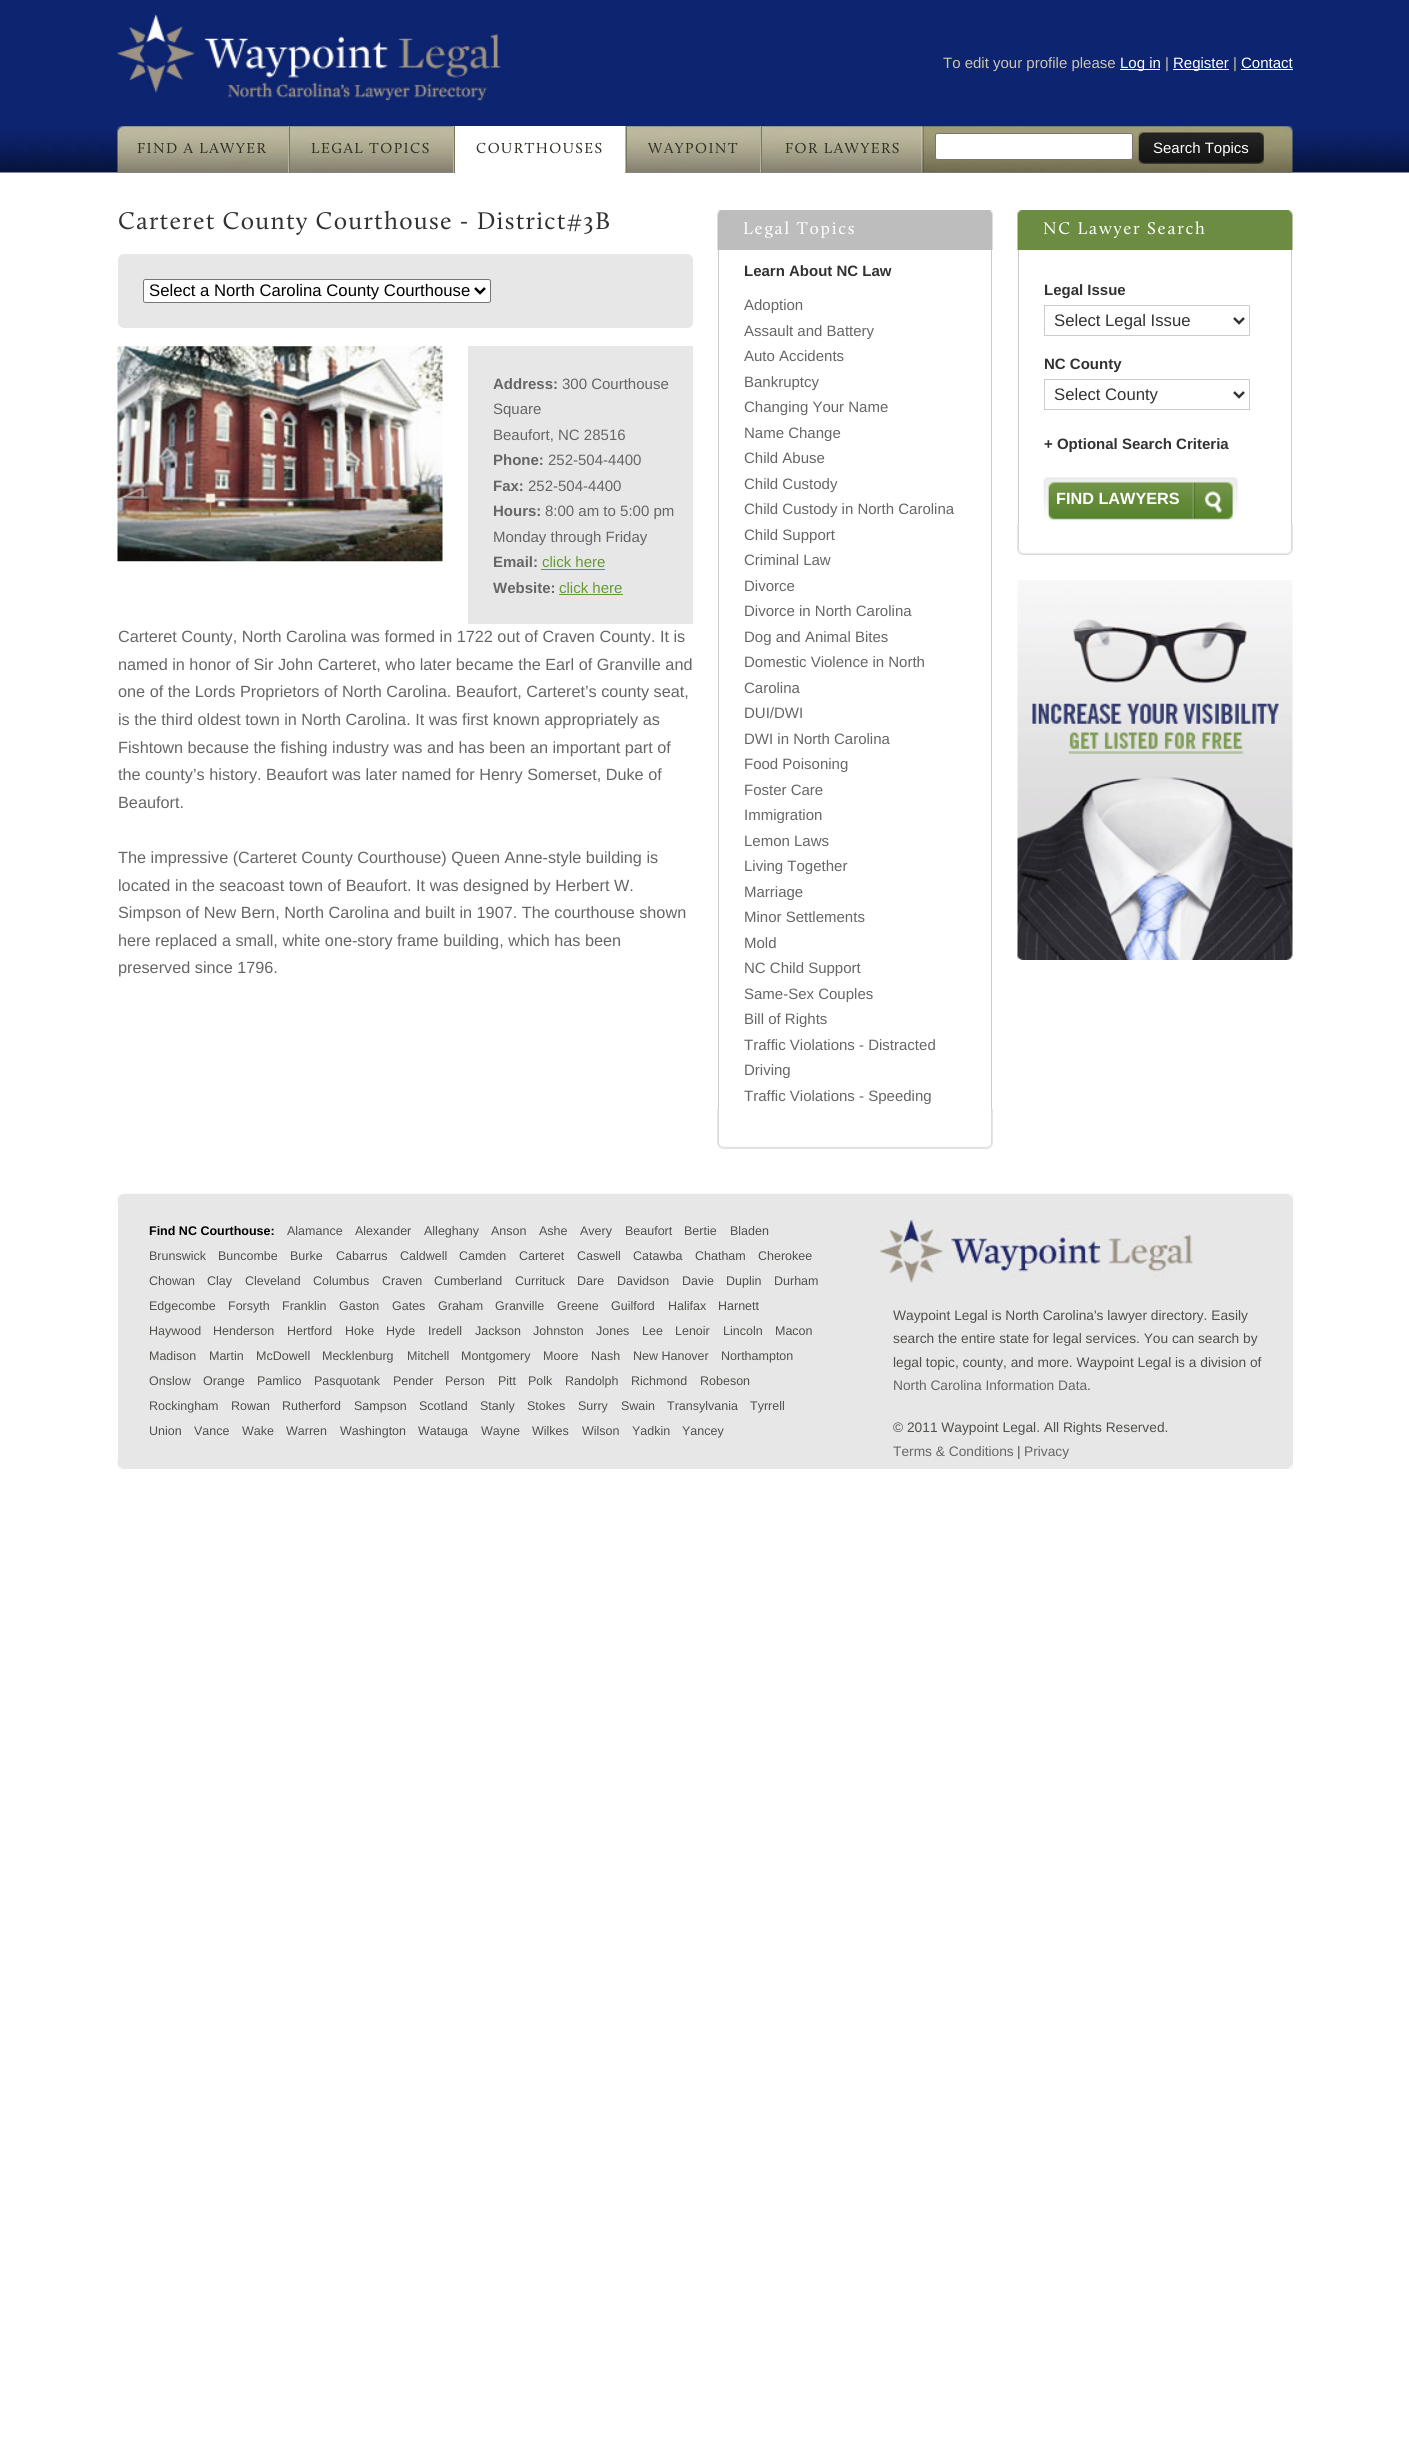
#include <cairo/cairo.h>
#include <math.h>
#include <stddef.h>

static cairo_t *cr;

static void use_color(int r, int g, int b) {
  cairo_set_source_rgb(cr, r / 255.0, g / 255.0, b / 255.0);
}

static void text(double x, double y, const char *s, const char *family, double size, int italic, int bold, int r, int g, int b) {
  cairo_select_font_face(cr, family, italic ? CAIRO_FONT_SLANT_ITALIC : CAIRO_FONT_SLANT_NORMAL,
    bold ? CAIRO_FONT_WEIGHT_BOLD : CAIRO_FONT_WEIGHT_NORMAL);
  cairo_set_font_size(cr, size);
  use_color(r, g, b);
  cairo_move_to(cr, x, y);
  cairo_show_text(cr, s);
}

static void spaced_text(double x, double y, const char *s, double letter, double word) {
  cairo_move_to(cr, x, y);
  while (*s) {
    char ch[5] = {0};
    int n = 0;
    do ch[n++] = *s++; while ((*s & 0xC0) == 0x80);
    cairo_show_text(cr, ch);
    cairo_rel_move_to(cr, letter + word * (*ch == ' '), 0);
  }
}

static void box(double x, double y, double w, double h, int r, int g, int b) {
  use_color(r, g, b);
  cairo_rectangle(cr, x, y, w, h);
  cairo_fill(cr);
}

static void round_rect(double x, double y, double w, double h, double r) {
  cairo_new_sub_path(cr);
  cairo_arc(cr, x + w - r, y + h - r, r, 0, M_PI / 2);
  cairo_arc(cr, x + r, y + h - r, r, M_PI / 2, M_PI);
  cairo_arc(cr, x + r, y + r, r, M_PI, 1.5 * M_PI);
  cairo_arc(cr, x + w - r, y + r, r, 1.5 * M_PI, 2 * M_PI);
  cairo_close_path(cr);
}

static void picture(const char *path, double x, double y, double w, double h) {
  cairo_surface_t *image = cairo_image_surface_create_from_png(path);
  cairo_save(cr);
  cairo_set_source_surface(cr, image, x, y);
  cairo_rectangle(cr, x, y, w, h);
  cairo_fill(cr);
  cairo_restore(cr);
  cairo_surface_destroy(image);
}

static void draw(void) {
  use_color(255, 255, 255);
  cairo_paint(cr);
  picture("img_01.png", 0, 0, 1409, 173);
  picture("img_02.png", 117, 14, 384, 87);
  box(1120, 69, 40, 1, 255, 255, 255);
  box(1173, 69, 56, 1, 255, 255, 255);
  box(1241, 69, 52, 1, 255, 255, 255);
  picture("img_03.png", 117, 126, 1176, 47);
  box(288, 126, 1, 47, 183, 180, 160);
  box(453, 126, 1, 47, 183, 180, 160);
  box(289, 126, 1, 47, 121, 118, 96);
  box(625, 126, 1, 47, 183, 180, 160);
  box(454, 126, 1, 47, 121, 118, 96);
  box(455, 126, 170, 47, 255, 255, 255);
  box(760, 126, 1, 47, 183, 180, 160);
  box(626, 126, 1, 47, 121, 118, 96);
  box(761, 126, 1, 47, 121, 118, 96);
  use_color(255, 255, 255);
  round_rect(935.5, 133.5, 197, 26, 2);
  cairo_fill_preserve(cr);
  use_color(118, 118, 118);
  cairo_set_line_width(cr, 1);
  cairo_stroke(cr);
  picture("img_04.png", 1138, 132, 126, 32);
  use_color(231, 231, 231);
  round_rect(118, 254, 575, 74, 6);
  cairo_fill(cr);
  use_color(255, 255, 255);
  round_rect(143.5, 279.5, 347, 23, 2);
  cairo_fill_preserve(cr);
  use_color(118, 118, 118);
  cairo_stroke(cr);
  cairo_new_path(cr);
  cairo_move_to(cr, 475, 288);
  cairo_line_to(cr, 480, 293);
  cairo_line_to(cr, 485, 288);
  use_color(0, 0, 0);
  cairo_set_line_width(cr, 2.5);
  cairo_stroke(cr);
  picture("img_05.png", 117, 346, 326, 216);
  box(468, 346, 225, 278, 231, 231, 231);
  box(541, 569, 64, 1, 102, 153, 51);
  box(559, 594, 64, 1, 102, 153, 51);
  picture("img_06.png", 717, 210, 276, 40);
  box(991, 250, 1, 859, 204, 204, 204);
  box(718, 250, 1, 859, 204, 204, 204);
  picture("img_07.png", 717, 1108, 276, 41);
  picture("img_08.png", 1017, 210, 276, 40);
  box(1291, 250, 1, 274, 204, 204, 204);
  box(1018, 250, 1, 274, 204, 204, 204);
  cairo_rectangle(cr, 1044.5, 305.5, 205, 30);
  cairo_set_line_width(cr, 1);
  cairo_stroke(cr);
  cairo_new_path(cr);
  cairo_move_to(cr, 1234, 318);
  cairo_line_to(cr, 1239, 323);
  cairo_line_to(cr, 1244, 318);
  use_color(51, 51, 51);
  cairo_set_line_width(cr, 2.5);
  cairo_stroke(cr);
  cairo_rectangle(cr, 1044.5, 379.5, 205, 30);
  use_color(204, 204, 204);
  cairo_set_line_width(cr, 1);
  cairo_stroke(cr);
  cairo_new_path(cr);
  cairo_move_to(cr, 1234, 392);
  cairo_line_to(cr, 1239, 397);
  cairo_line_to(cr, 1244, 392);
  use_color(51, 51, 51);
  cairo_set_line_width(cr, 2.5);
  cairo_stroke(cr);
  picture("img_09.png", 1043, 477, 195, 44);
  picture("img_10.png", 1017, 523, 276, 32);
  picture("img_11.png", 1017, 580, 276, 380);
  box(118, 1194, 1175, 275, 231, 231, 231);
  picture("img_12.png", 117, 1193, 1176, 10);
  picture("img_13.png", 117, 1460, 1176, 9);
  picture("img_14.png", 880, 1219, 313, 66);
  text(943, 68, "To edit your profile please", "Liberation Sans", 15, 0, 0, 203, 198, 174);
  text(1120, 68, "Log in", "Liberation Sans", 15, 0, 0, 255, 255, 255);
  text(1165, 68, "|", "Liberation Sans", 15, 0, 0, 203, 198, 174);
  text(1173, 68, "Register", "Liberation Sans", 15, 0, 0, 255, 255, 255);
  text(1233, 68, "|", "Liberation Sans", 15, 0, 0, 203, 198, 174);
  text(1241, 68, "Contact", "Liberation Sans", 15, 0, 0, 255, 255, 255);
  cairo_select_font_face(cr, "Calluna", CAIRO_FONT_SLANT_NORMAL, CAIRO_FONT_WEIGHT_NORMAL);
  use_color(49, 48, 39);
  spaced_text(137, 153, "FIND A LAWYER", 1.5, 0);
  spaced_text(311, 153, "LEGAL TOPICS", 1.5, 0);
  spaced_text(476, 153, "COURTHOUSES", 1.5, 0);
  spaced_text(648, 153, "WAYPOINT", 1.5, 0);
  spaced_text(785, 153, "FOR LAWYERS", 1.5, 0);
  text(1153, 153, "Search Topics", "Liberation Sans", 15, 0, 0, 255, 255, 255);
  cairo_select_font_face(cr, "Calluna", CAIRO_FONT_SLANT_NORMAL, CAIRO_FONT_WEIGHT_NORMAL);
  cairo_set_font_size(cr, 25);
  use_color(50, 50, 50);
  spaced_text(118, 229, "Carteret County Courthouse - District#3B", 1.25, 0);
  text(149, 296, "Select a North Carolina County Courthouse", "Liberation Sans", 16.7, 0, 0, 0, 0, 0);
  text(493, 389, "Address:", "Liberation Sans", 15, 0, 1, 102, 102, 102);
  text(562, 389, "300 Courthouse", "Liberation Sans", 15, 0, 0, 102, 102, 102);
  text(493, 414, "Square", "Liberation Sans", 15, 0, 0, 102, 102, 102);
  text(493, 440, "Beaufort, NC 28516", "Liberation Sans", 15, 0, 0, 102, 102, 102);
  text(493, 465, "Phone:", "Liberation Sans", 15, 0, 1, 102, 102, 102);
  text(548, 465, "252-504-4400", "Liberation Sans", 15, 0, 0, 102, 102, 102);
  text(493, 491, "Fax:", "Liberation Sans", 15, 0, 1, 102, 102, 102);
  text(528, 491, "252-504-4400", "Liberation Sans", 15, 0, 0, 102, 102, 102);
  text(493, 516, "Hours:", "Liberation Sans", 15, 0, 1, 102, 102, 102);
  text(545, 516, "8:00 am to 5:00 pm", "Liberation Sans", 15, 0, 0, 102, 102, 102);
  text(493, 542, "Monday through Friday", "Liberation Sans", 15, 0, 0, 102, 102, 102);
  text(493, 567, "Email:", "Liberation Sans", 15, 0, 1, 102, 102, 102);
  text(542, 567, "click here", "Liberation Sans", 15, 0, 0, 102, 153, 51);
  text(493, 593, "Website:", "Liberation Sans", 15, 0, 1, 102, 102, 102);
  text(559, 593, "click here", "Liberation Sans", 15, 0, 0, 102, 153, 51);
  text(118, 642, "Carteret County, North Carolina was formed in 1722 out of Craven County. It is", "Liberation Sans", 16.25, 0, 0, 102, 102, 102);
  text(118, 670, "named in honor of Sir John Carteret, who later became the Earl of Granville and", "Liberation Sans", 16.25, 0, 0, 102, 102, 102);
  text(118, 697, "one of the Lords Proprietors of North Carolina. Beaufort, Carteret’s county seat,", "Liberation Sans", 16.25, 0, 0, 102, 102, 102);
  text(118, 725, "is the third oldest town in North Carolina. It was first known appropriately as", "Liberation Sans", 16.25, 0, 0, 102, 102, 102);
  text(118, 753, "Fishtown because the fishing industry was and has been an important part of", "Liberation Sans", 16.25, 0, 0, 102, 102, 102);
  text(118, 780, "the county’s history. Beaufort was later named for Henry Somerset, Duke of", "Liberation Sans", 16.25, 0, 0, 102, 102, 102);
  text(118, 808, "Beaufort.", "Liberation Sans", 16.25, 0, 0, 102, 102, 102);
  text(118, 863, "The impressive (Carteret County Courthouse) Queen Anne-style building is", "Liberation Sans", 16.25, 0, 0, 102, 102, 102);
  text(118, 891, "located in the seacoast town of Beaufort. It was designed by Herbert W.", "Liberation Sans", 16.25, 0, 0, 102, 102, 102);
  text(118, 918, "Simpson of New Bern, North Carolina and built in 1907. The courthouse shown", "Liberation Sans", 16.25, 0, 0, 102, 102, 102);
  text(118, 946, "here replaced a small, white one-story frame building, which has been", "Liberation Sans", 16.25, 0, 0, 102, 102, 102);
  text(118, 973, "preserved since 1796.", "Liberation Sans", 16.25, 0, 0, 102, 102, 102);
  cairo_select_font_face(cr, "Calluna", CAIRO_FONT_SLANT_NORMAL, CAIRO_FONT_WEIGHT_NORMAL);
  cairo_set_font_size(cr, 17.5);
  use_color(255, 255, 255);
  spaced_text(743, 234, "Legal Topics", 1.75, 0);
  text(744, 276, "Learn About NC Law", "Liberation Sans", 15, 0, 1, 50, 50, 50);
  text(744, 310, "Adoption", "Liberation Sans", 15, 0, 0, 102, 102, 102);
  text(744, 336, "Assault and Battery", "Liberation Sans", 15, 0, 0, 102, 102, 102);
  text(744, 361, "Auto Accidents", "Liberation Sans", 15, 0, 0, 102, 102, 102);
  text(744, 387, "Bankruptcy", "Liberation Sans", 15, 0, 0, 102, 102, 102);
  text(744, 412, "Changing Your Name", "Liberation Sans", 15, 0, 0, 102, 102, 102);
  text(744, 438, "Name Change", "Liberation Sans", 15, 0, 0, 102, 102, 102);
  text(744, 463, "Child Abuse", "Liberation Sans", 15, 0, 0, 102, 102, 102);
  text(744, 489, "Child Custody", "Liberation Sans", 15, 0, 0, 102, 102, 102);
  text(744, 514, "Child Custody in North Carolina", "Liberation Sans", 15, 0, 0, 102, 102, 102);
  text(744, 540, "Child Support", "Liberation Sans", 15, 0, 0, 102, 102, 102);
  text(744, 565, "Criminal Law", "Liberation Sans", 15, 0, 0, 102, 102, 102);
  text(744, 591, "Divorce", "Liberation Sans", 15, 0, 0, 102, 102, 102);
  text(744, 616, "Divorce in North Carolina", "Liberation Sans", 15, 0, 0, 102, 102, 102);
  text(744, 642, "Dog and Animal Bites", "Liberation Sans", 15, 0, 0, 102, 102, 102);
  text(744, 667, "Domestic Violence in North", "Liberation Sans", 15, 0, 0, 102, 102, 102);
  text(744, 693, "Carolina", "Liberation Sans", 15, 0, 0, 102, 102, 102);
  text(744, 718, "DUI/DWI", "Liberation Sans", 15, 0, 0, 102, 102, 102);
  text(744, 744, "DWI in North Carolina", "Liberation Sans", 15, 0, 0, 102, 102, 102);
  text(744, 769, "Food Poisoning", "Liberation Sans", 15, 0, 0, 102, 102, 102);
  text(744, 795, "Foster Care", "Liberation Sans", 15, 0, 0, 102, 102, 102);
  text(744, 820, "Immigration", "Liberation Sans", 15, 0, 0, 102, 102, 102);
  text(744, 846, "Lemon Laws", "Liberation Sans", 15, 0, 0, 102, 102, 102);
  text(744, 871, "Living Together", "Liberation Sans", 15, 0, 0, 102, 102, 102);
  text(744, 897, "Marriage", "Liberation Sans", 15, 0, 0, 102, 102, 102);
  text(744, 922, "Minor Settlements", "Liberation Sans", 15, 0, 0, 102, 102, 102);
  text(744, 948, "Mold", "Liberation Sans", 15, 0, 0, 102, 102, 102);
  text(744, 973, "NC Child Support", "Liberation Sans", 15, 0, 0, 102, 102, 102);
  text(744, 999, "Same-Sex Couples", "Liberation Sans", 15, 0, 0, 102, 102, 102);
  text(744, 1024, "Bill of Rights", "Liberation Sans", 15, 0, 0, 102, 102, 102);
  text(744, 1050, "Traffic Violations - Distracted", "Liberation Sans", 15, 0, 0, 102, 102, 102);
  text(744, 1075, "Driving", "Liberation Sans", 15, 0, 0, 102, 102, 102);
  text(744, 1101, "Traffic Violations - Speeding", "Liberation Sans", 15, 0, 0, 102, 102, 102);
  cairo_select_font_face(cr, "Calluna", CAIRO_FONT_SLANT_NORMAL, CAIRO_FONT_WEIGHT_NORMAL);
  cairo_set_font_size(cr, 17.5);
  use_color(255, 255, 255);
  spaced_text(1043, 234, "NC Lawyer Search", 1.75, 0);
  text(1044, 295, "Legal Issue", "Liberation Sans", 15, 0, 1, 50, 50, 50);
  text(1054, 326, "Select Legal Issue", "Liberation Sans", 16.7, 0, 0, 50, 50, 50);
  text(1044, 369, "NC County", "Liberation Sans", 15, 0, 1, 50, 50, 50);
  text(1054, 400, "Select County", "Liberation Sans", 16.7, 0, 0, 50, 50, 50);
  text(1044, 449, "+ Optional Search Criteria", "Liberation Sans", 15, 0, 1, 50, 50, 50);
  text(1056, 504, "FIND LAWYERS", "Liberation Sans", 16.25, 0, 1, 255, 255, 255);
  text(149, 1235, "Find NC Courthouse:", "Liberation Sans", 12.5, 0, 1, 0, 0, 0);
  text(287, 1235, "Alamance", "Liberation Sans", 12.5, 0, 0, 81, 80, 77);
  text(355, 1235, "Alexander", "Liberation Sans", 12.5, 0, 0, 81, 80, 77);
  text(424, 1235, "Alleghany", "Liberation Sans", 12.5, 0, 0, 81, 80, 77);
  text(491, 1235, "Anson", "Liberation Sans", 12.5, 0, 0, 81, 80, 77);
  text(539, 1235, "Ashe", "Liberation Sans", 12.5, 0, 0, 81, 80, 77);
  text(580, 1235, "Avery", "Liberation Sans", 12.5, 0, 0, 81, 80, 77);
  text(625, 1235, "Beaufort", "Liberation Sans", 12.5, 0, 0, 81, 80, 77);
  text(684, 1235, "Bertie", "Liberation Sans", 12.5, 0, 0, 81, 80, 77);
  text(730, 1235, "Bladen", "Liberation Sans", 12.5, 0, 0, 81, 80, 77);
  text(149, 1260, "Brunswick", "Liberation Sans", 12.5, 0, 0, 81, 80, 77);
  text(218, 1260, "Buncombe", "Liberation Sans", 12.5, 0, 0, 81, 80, 77);
  text(290, 1260, "Burke", "Liberation Sans", 12.5, 0, 0, 81, 80, 77);
  text(336, 1260, "Cabarrus", "Liberation Sans", 12.5, 0, 0, 81, 80, 77);
  text(400, 1260, "Caldwell", "Liberation Sans", 12.5, 0, 0, 81, 80, 77);
  text(459, 1260, "Camden", "Liberation Sans", 12.5, 0, 0, 81, 80, 77);
  text(519, 1260, "Carteret", "Liberation Sans", 12.5, 0, 0, 81, 80, 77);
  text(577, 1260, "Caswell", "Liberation Sans", 12.5, 0, 0, 81, 80, 77);
  text(633, 1260, "Catawba", "Liberation Sans", 12.5, 0, 0, 81, 80, 77);
  text(695, 1260, "Chatham", "Liberation Sans", 12.5, 0, 0, 81, 80, 77);
  text(758, 1260, "Cherokee", "Liberation Sans", 12.5, 0, 0, 81, 80, 77);
  text(149, 1285, "Chowan", "Liberation Sans", 12.5, 0, 0, 81, 80, 77);
  text(207, 1285, "Clay", "Liberation Sans", 12.5, 0, 0, 81, 80, 77);
  text(245, 1285, "Cleveland", "Liberation Sans", 12.5, 0, 0, 81, 80, 77);
  text(313, 1285, "Columbus", "Liberation Sans", 12.5, 0, 0, 81, 80, 77);
  text(382, 1285, "Craven", "Liberation Sans", 12.5, 0, 0, 81, 80, 77);
  text(434, 1285, "Cumberland", "Liberation Sans", 12.5, 0, 0, 81, 80, 77);
  text(515, 1285, "Currituck", "Liberation Sans", 12.5, 0, 0, 81, 80, 77);
  text(577, 1285, "Dare", "Liberation Sans", 12.5, 0, 0, 81, 80, 77);
  text(617, 1285, "Davidson", "Liberation Sans", 12.5, 0, 0, 81, 80, 77);
  text(682, 1285, "Davie", "Liberation Sans", 12.5, 0, 0, 81, 80, 77);
  text(726, 1285, "Duplin", "Liberation Sans", 12.5, 0, 0, 81, 80, 77);
  text(774, 1285, "Durham", "Liberation Sans", 12.5, 0, 0, 81, 80, 77);
  text(149, 1310, "Edgecombe", "Liberation Sans", 12.5, 0, 0, 81, 80, 77);
  text(228, 1310, "Forsyth", "Liberation Sans", 12.5, 0, 0, 81, 80, 77);
  text(282, 1310, "Franklin", "Liberation Sans", 12.5, 0, 0, 81, 80, 77);
  text(339, 1310, "Gaston", "Liberation Sans", 12.5, 0, 0, 81, 80, 77);
  text(392, 1310, "Gates", "Liberation Sans", 12.5, 0, 0, 81, 80, 77);
  text(438, 1310, "Graham", "Liberation Sans", 12.5, 0, 0, 81, 80, 77);
  text(495, 1310, "Granville", "Liberation Sans", 12.5, 0, 0, 81, 80, 77);
  text(557, 1310, "Greene", "Liberation Sans", 12.5, 0, 0, 81, 80, 77);
  text(611, 1310, "Guilford", "Liberation Sans", 12.5, 0, 0, 81, 80, 77);
  text(668, 1310, "Halifax", "Liberation Sans", 12.5, 0, 0, 81, 80, 77);
  text(718, 1310, "Harnett", "Liberation Sans", 12.5, 0, 0, 81, 80, 77);
  text(149, 1335, "Haywood", "Liberation Sans", 12.5, 0, 0, 81, 80, 77);
  text(213, 1335, "Henderson", "Liberation Sans", 12.5, 0, 0, 81, 80, 77);
  text(287, 1335, "Hertford", "Liberation Sans", 12.5, 0, 0, 81, 80, 77);
  text(345, 1335, "Hoke", "Liberation Sans", 12.5, 0, 0, 81, 80, 77);
  text(386, 1335, "Hyde", "Liberation Sans", 12.5, 0, 0, 81, 80, 77);
  text(428, 1335, "Iredell", "Liberation Sans", 12.5, 0, 0, 81, 80, 77);
  text(475, 1335, "Jackson", "Liberation Sans", 12.5, 0, 0, 81, 80, 77);
  text(533, 1335, "Johnston", "Liberation Sans", 12.5, 0, 0, 81, 80, 77);
  text(596, 1335, "Jones", "Liberation Sans", 12.5, 0, 0, 81, 80, 77);
  text(642, 1335, "Lee", "Liberation Sans", 12.5, 0, 0, 81, 80, 77);
  text(675, 1335, "Lenoir", "Liberation Sans", 12.5, 0, 0, 81, 80, 77);
  text(723, 1335, "Lincoln", "Liberation Sans", 12.5, 0, 0, 81, 80, 77);
  text(775, 1335, "Macon", "Liberation Sans", 12.5, 0, 0, 81, 80, 77);
  text(149, 1360, "Madison", "Liberation Sans", 12.5, 0, 0, 81, 80, 77);
  text(209, 1360, "Martin", "Liberation Sans", 12.5, 0, 0, 81, 80, 77);
  text(256, 1360, "McDowell", "Liberation Sans", 12.5, 0, 0, 81, 80, 77);
  text(322, 1360, "Mecklenburg", "Liberation Sans", 12.5, 0, 0, 81, 80, 77);
  text(407, 1360, "Mitchell", "Liberation Sans", 12.5, 0, 0, 81, 80, 77);
  text(461, 1360, "Montgomery", "Liberation Sans", 12.5, 0, 0, 81, 80, 77);
  text(543, 1360, "Moore", "Liberation Sans", 12.5, 0, 0, 81, 80, 77);
  text(591, 1360, "Nash", "Liberation Sans", 12.5, 0, 0, 81, 80, 77);
  text(633, 1360, "New Hanover", "Liberation Sans", 12.5, 0, 0, 81, 80, 77);
  text(721, 1360, "Northampton", "Liberation Sans", 12.5, 0, 0, 81, 80, 77);
  text(149, 1385, "Onslow", "Liberation Sans", 12.5, 0, 0, 81, 80, 77);
  text(203, 1385, "Orange", "Liberation Sans", 12.5, 0, 0, 81, 80, 77);
  text(257, 1385, "Pamlico", "Liberation Sans", 12.5, 0, 0, 81, 80, 77);
  text(314, 1385, "Pasquotank", "Liberation Sans", 12.5, 0, 0, 81, 80, 77);
  text(393, 1385, "Pender", "Liberation Sans", 12.5, 0, 0, 81, 80, 77);
  text(445, 1385, "Person", "Liberation Sans", 12.5, 0, 0, 81, 80, 77);
  text(498, 1385, "Pitt", "Liberation Sans", 12.5, 0, 0, 81, 80, 77);
  text(528, 1385, "Polk", "Liberation Sans", 12.5, 0, 0, 81, 80, 77);
  text(565, 1385, "Randolph", "Liberation Sans", 12.5, 0, 0, 81, 80, 77);
  text(631, 1385, "Richmond", "Liberation Sans", 12.5, 0, 0, 81, 80, 77);
  text(700, 1385, "Robeson", "Liberation Sans", 12.5, 0, 0, 81, 80, 77);
  text(149, 1410, "Rockingham", "Liberation Sans", 12.5, 0, 0, 81, 80, 77);
  text(231, 1410, "Rowan", "Liberation Sans", 12.5, 0, 0, 81, 80, 77);
  text(282, 1410, "Rutherford", "Liberation Sans", 12.5, 0, 0, 81, 80, 77);
  text(354, 1410, "Sampson", "Liberation Sans", 12.5, 0, 0, 81, 80, 77);
  text(419, 1410, "Scotland", "Liberation Sans", 12.5, 0, 0, 81, 80, 77);
  text(480, 1410, "Stanly", "Liberation Sans", 12.5, 0, 0, 81, 80, 77);
  text(527, 1410, "Stokes", "Liberation Sans", 12.5, 0, 0, 81, 80, 77);
  text(578, 1410, "Surry", "Liberation Sans", 12.5, 0, 0, 81, 80, 77);
  text(621, 1410, "Swain", "Liberation Sans", 12.5, 0, 0, 81, 80, 77);
  text(667, 1410, "Transylvania", "Liberation Sans", 12.5, 0, 0, 81, 80, 77);
  text(750, 1410, "Tyrrell", "Liberation Sans", 12.5, 0, 0, 81, 80, 77);
  text(149, 1435, "Union", "Liberation Sans", 12.5, 0, 0, 81, 80, 77);
  text(194, 1435, "Vance", "Liberation Sans", 12.5, 0, 0, 81, 80, 77);
  text(242, 1435, "Wake", "Liberation Sans", 12.5, 0, 0, 81, 80, 77);
  text(286, 1435, "Warren", "Liberation Sans", 12.5, 0, 0, 81, 80, 77);
  text(340, 1435, "Washington", "Liberation Sans", 12.5, 0, 0, 81, 80, 77);
  text(418, 1435, "Watauga", "Liberation Sans", 12.5, 0, 0, 81, 80, 77);
  text(481, 1435, "Wayne", "Liberation Sans", 12.5, 0, 0, 81, 80, 77);
  text(532, 1435, "Wilkes", "Liberation Sans", 12.5, 0, 0, 81, 80, 77);
  text(582, 1435, "Wilson", "Liberation Sans", 12.5, 0, 0, 81, 80, 77);
  text(632, 1435, "Yadkin", "Liberation Sans", 12.5, 0, 0, 81, 80, 77);
  text(682, 1435, "Yancey", "Liberation Sans", 12.5, 0, 0, 81, 80, 77);
  text(893, 1320, "Waypoint Legal is North Carolina's lawyer directory. Easily", "Liberation Sans", 13.75, 0, 0, 81, 80, 77);
  text(893, 1343, "search the entire state for legal services. You can search by", "Liberation Sans", 13.75, 0, 0, 81, 80, 77);
  text(893, 1367, "legal topic, county, and more. Waypoint Legal is a division of", "Liberation Sans", 13.75, 0, 0, 81, 80, 77);
  text(893, 1390, "North Carolina Information Data", "Liberation Sans", 13.75, 0, 0, 102, 102, 102);
  text(1087, 1390, ".", "Liberation Sans", 13.75, 0, 0, 81, 80, 77);
  text(893, 1432, "© 2011 Waypoint Legal. All Rights Reserved.", "Liberation Sans", 13.75, 0, 0, 81, 80, 77);
  text(893, 1456, "Terms & Conditions", "Liberation Sans", 13.75, 0, 0, 102, 102, 102);
  text(1017, 1456, "|", "Liberation Sans", 13.75, 0, 0, 81, 80, 77);
  text(1024, 1456, "Privacy", "Liberation Sans", 13.75, 0, 0, 102, 102, 102);
}

int main(void) {
  cairo_surface_t *surface = cairo_image_surface_create(CAIRO_FORMAT_RGB24, 1409, 2460);
  cr = cairo_create(surface);
  cairo_font_options_t *options = cairo_font_options_create();
  cairo_font_options_set_hint_metrics(options, CAIRO_HINT_METRICS_OFF);
  cairo_font_options_set_hint_style(options, CAIRO_HINT_STYLE_NONE);
  cairo_set_font_options(cr, options);
  cairo_set_miter_limit(cr, 4);
  draw();
  cairo_surface_write_to_png(surface, "out.png");
  cairo_font_options_destroy(options);
  cairo_destroy(cr);
  cairo_surface_destroy(surface);
  return 0;
}
